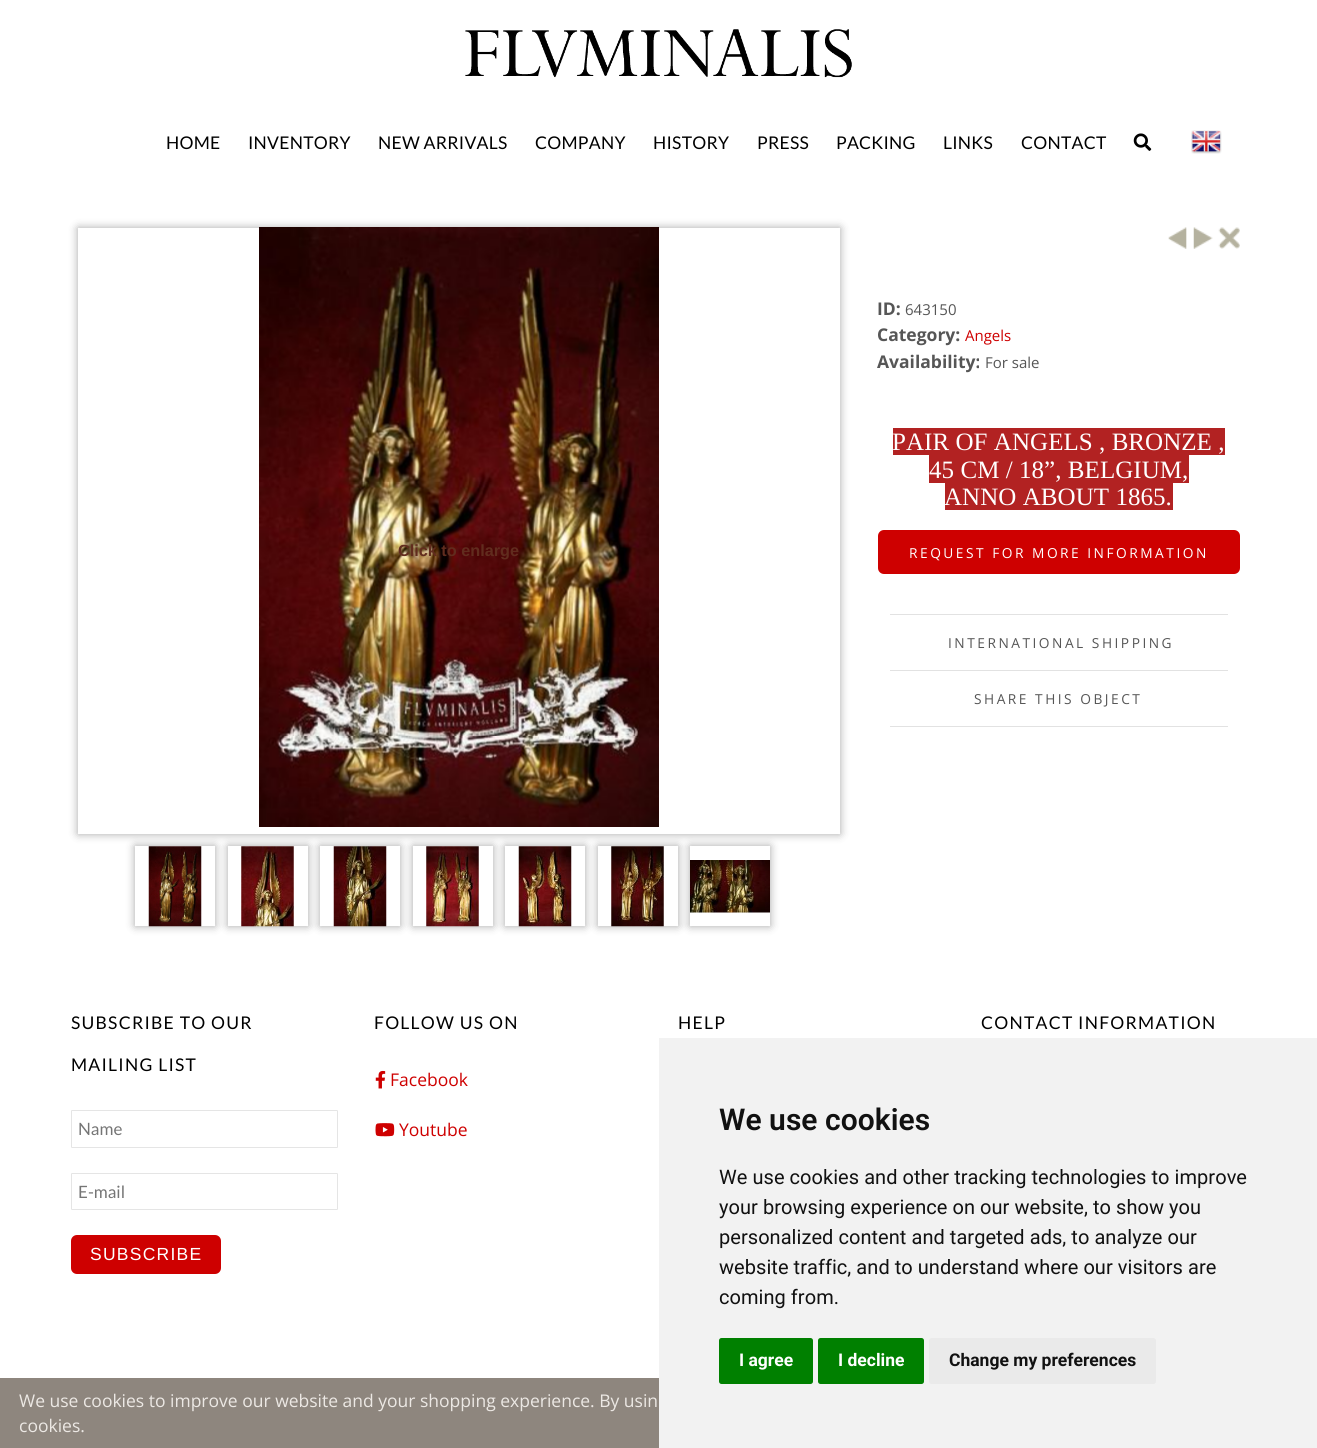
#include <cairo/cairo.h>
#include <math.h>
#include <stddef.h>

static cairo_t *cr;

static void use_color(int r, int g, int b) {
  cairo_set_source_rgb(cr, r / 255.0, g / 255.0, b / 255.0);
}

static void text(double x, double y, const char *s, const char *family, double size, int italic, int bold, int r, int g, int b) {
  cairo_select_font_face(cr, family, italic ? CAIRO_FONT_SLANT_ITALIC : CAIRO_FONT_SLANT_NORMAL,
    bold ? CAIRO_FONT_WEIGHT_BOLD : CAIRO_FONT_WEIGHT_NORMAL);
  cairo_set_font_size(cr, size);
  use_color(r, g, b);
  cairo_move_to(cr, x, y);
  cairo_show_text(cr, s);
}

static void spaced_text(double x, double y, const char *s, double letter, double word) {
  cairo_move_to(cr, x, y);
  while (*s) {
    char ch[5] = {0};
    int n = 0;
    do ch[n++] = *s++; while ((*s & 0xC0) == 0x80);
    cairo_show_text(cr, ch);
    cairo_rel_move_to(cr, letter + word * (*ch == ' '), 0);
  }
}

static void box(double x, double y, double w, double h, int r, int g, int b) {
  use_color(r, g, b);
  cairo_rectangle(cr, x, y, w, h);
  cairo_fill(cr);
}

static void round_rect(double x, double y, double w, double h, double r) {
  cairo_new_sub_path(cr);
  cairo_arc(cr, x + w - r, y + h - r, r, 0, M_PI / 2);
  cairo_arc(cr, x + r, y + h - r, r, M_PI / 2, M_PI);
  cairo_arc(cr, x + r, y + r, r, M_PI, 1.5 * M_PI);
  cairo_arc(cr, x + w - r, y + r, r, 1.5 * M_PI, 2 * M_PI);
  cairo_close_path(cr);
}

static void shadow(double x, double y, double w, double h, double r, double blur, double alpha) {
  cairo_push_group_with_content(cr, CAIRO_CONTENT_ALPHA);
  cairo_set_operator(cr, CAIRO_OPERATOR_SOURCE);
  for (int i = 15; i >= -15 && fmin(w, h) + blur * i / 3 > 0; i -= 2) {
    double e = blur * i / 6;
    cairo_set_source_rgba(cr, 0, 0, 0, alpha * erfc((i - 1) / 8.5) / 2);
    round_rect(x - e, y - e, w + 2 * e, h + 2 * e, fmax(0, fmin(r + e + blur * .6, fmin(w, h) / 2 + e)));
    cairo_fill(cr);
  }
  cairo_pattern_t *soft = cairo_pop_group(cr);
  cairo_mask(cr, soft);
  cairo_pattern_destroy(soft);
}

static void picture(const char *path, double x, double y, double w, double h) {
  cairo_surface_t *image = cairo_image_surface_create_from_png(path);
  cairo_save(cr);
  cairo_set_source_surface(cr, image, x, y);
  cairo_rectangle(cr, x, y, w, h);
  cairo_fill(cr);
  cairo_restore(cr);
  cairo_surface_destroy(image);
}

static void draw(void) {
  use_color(255, 255, 255);
  cairo_paint(cr);
  box(0, 1378, 659, 70, 142, 134, 126);
  picture("img_01.png", 465, 29, 387, 49);
  picture("img_02.png", 1133, 133, 19, 18);
  picture("img_03.png", 1191, 130, 31, 24);
  picture("img_04.png", 1168, 227, 19, 22);
  picture("img_05.png", 1193, 227, 20, 22);
  picture("img_06.png", 1218, 227, 22, 22);
  cairo_save(cr);
  cairo_set_fill_rule(cr, CAIRO_FILL_RULE_EVEN_ODD);
  cairo_new_path(cr);
  cairo_move_to(cr, 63, 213);
  cairo_line_to(cr, 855, 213);
  cairo_line_to(cr, 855, 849);
  cairo_line_to(cr, 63, 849);
  cairo_close_path(cr);
  cairo_move_to(cr, 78, 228);
  cairo_line_to(cr, 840, 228);
  cairo_line_to(cr, 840, 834);
  cairo_line_to(cr, 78, 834);
  cairo_close_path(cr);
  cairo_clip(cr);
  use_color(0, 0, 0);
  shadow(78, 228, 762, 606, 0, 4.5, 0.35);
  cairo_restore(cr);
  picture("img_07.png", 259, 227, 400, 600);
  cairo_save(cr);
  cairo_set_fill_rule(cr, CAIRO_FILL_RULE_EVEN_ODD);
  cairo_new_path(cr);
  cairo_move_to(cr, 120, 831);
  cairo_line_to(cr, 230, 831);
  cairo_line_to(cr, 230, 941);
  cairo_line_to(cr, 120, 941);
  cairo_close_path(cr);
  cairo_move_to(cr, 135, 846);
  cairo_line_to(cr, 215, 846);
  cairo_line_to(cr, 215, 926);
  cairo_line_to(cr, 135, 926);
  cairo_close_path(cr);
  cairo_clip(cr);
  use_color(0, 0, 0);
  shadow(135, 846, 80, 80, 0, 4.5, 0.35);
  cairo_restore(cr);
  picture("img_08.png", 148, 846, 54, 81);
  cairo_save(cr);
  cairo_set_fill_rule(cr, CAIRO_FILL_RULE_EVEN_ODD);
  cairo_new_path(cr);
  cairo_move_to(cr, 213, 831);
  cairo_line_to(cr, 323, 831);
  cairo_line_to(cr, 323, 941);
  cairo_line_to(cr, 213, 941);
  cairo_close_path(cr);
  cairo_move_to(cr, 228, 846);
  cairo_line_to(cr, 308, 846);
  cairo_line_to(cr, 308, 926);
  cairo_line_to(cr, 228, 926);
  cairo_close_path(cr);
  cairo_clip(cr);
  use_color(0, 0, 0);
  shadow(228, 846, 80, 80, 0, 4.5, 0.35);
  cairo_restore(cr);
  picture("img_09.png", 241, 846, 53, 81);
  cairo_save(cr);
  cairo_set_fill_rule(cr, CAIRO_FILL_RULE_EVEN_ODD);
  cairo_new_path(cr);
  cairo_move_to(cr, 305, 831);
  cairo_line_to(cr, 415, 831);
  cairo_line_to(cr, 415, 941);
  cairo_line_to(cr, 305, 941);
  cairo_close_path(cr);
  cairo_move_to(cr, 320, 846);
  cairo_line_to(cr, 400, 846);
  cairo_line_to(cr, 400, 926);
  cairo_line_to(cr, 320, 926);
  cairo_close_path(cr);
  cairo_clip(cr);
  use_color(0, 0, 0);
  shadow(320, 846, 80, 80, 0, 4.5, 0.35);
  cairo_restore(cr);
  picture("img_10.png", 333, 846, 54, 81);
  cairo_save(cr);
  cairo_set_fill_rule(cr, CAIRO_FILL_RULE_EVEN_ODD);
  cairo_new_path(cr);
  cairo_move_to(cr, 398, 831);
  cairo_line_to(cr, 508, 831);
  cairo_line_to(cr, 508, 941);
  cairo_line_to(cr, 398, 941);
  cairo_close_path(cr);
  cairo_move_to(cr, 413, 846);
  cairo_line_to(cr, 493, 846);
  cairo_line_to(cr, 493, 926);
  cairo_line_to(cr, 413, 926);
  cairo_close_path(cr);
  cairo_clip(cr);
  use_color(0, 0, 0);
  shadow(413, 846, 80, 80, 0, 4.5, 0.35);
  cairo_restore(cr);
  picture("img_11.png", 426, 846, 53, 81);
  cairo_save(cr);
  cairo_set_fill_rule(cr, CAIRO_FILL_RULE_EVEN_ODD);
  cairo_new_path(cr);
  cairo_move_to(cr, 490, 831);
  cairo_line_to(cr, 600, 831);
  cairo_line_to(cr, 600, 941);
  cairo_line_to(cr, 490, 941);
  cairo_close_path(cr);
  cairo_move_to(cr, 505, 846);
  cairo_line_to(cr, 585, 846);
  cairo_line_to(cr, 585, 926);
  cairo_line_to(cr, 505, 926);
  cairo_close_path(cr);
  cairo_clip(cr);
  use_color(0, 0, 0);
  shadow(505, 846, 80, 80, 0, 4.5, 0.35);
  cairo_restore(cr);
  picture("img_12.png", 518, 846, 54, 81);
  cairo_save(cr);
  cairo_set_fill_rule(cr, CAIRO_FILL_RULE_EVEN_ODD);
  cairo_new_path(cr);
  cairo_move_to(cr, 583, 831);
  cairo_line_to(cr, 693, 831);
  cairo_line_to(cr, 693, 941);
  cairo_line_to(cr, 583, 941);
  cairo_close_path(cr);
  cairo_move_to(cr, 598, 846);
  cairo_line_to(cr, 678, 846);
  cairo_line_to(cr, 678, 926);
  cairo_line_to(cr, 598, 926);
  cairo_close_path(cr);
  cairo_clip(cr);
  use_color(0, 0, 0);
  shadow(598, 846, 80, 80, 0, 4.5, 0.35);
  cairo_restore(cr);
  picture("img_13.png", 611, 846, 53, 81);
  cairo_save(cr);
  cairo_set_fill_rule(cr, CAIRO_FILL_RULE_EVEN_ODD);
  cairo_new_path(cr);
  cairo_move_to(cr, 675, 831);
  cairo_line_to(cr, 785, 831);
  cairo_line_to(cr, 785, 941);
  cairo_line_to(cr, 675, 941);
  cairo_close_path(cr);
  cairo_move_to(cr, 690, 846);
  cairo_line_to(cr, 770, 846);
  cairo_line_to(cr, 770, 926);
  cairo_line_to(cr, 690, 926);
  cairo_close_path(cr);
  cairo_clip(cr);
  use_color(0, 0, 0);
  shadow(690, 846, 80, 80, 0, 4.5, 0.35);
  cairo_restore(cr);
  picture("img_14.png", 690, 860, 80, 53);
  box(893, 428, 332, 27, 178, 34, 34);
  box(929, 455, 260, 28, 178, 34, 34);
  box(945, 483, 228, 27, 178, 34, 34);
  use_color(206, 0, 0);
  round_rect(878, 530, 362, 44, 6);
  cairo_fill(cr);
  box(890, 614, 338, 1, 226, 226, 226);
  box(890, 670, 338, 1, 226, 226, 226);
  box(890, 726, 338, 1, 226, 226, 226);
  round_rect(71.5, 1110.5, 266, 37, 0.5);
  use_color(229, 229, 229);
  cairo_set_line_width(cr, 1);
  cairo_stroke(cr);
  round_rect(71.5, 1173.5, 266, 36, 0.5);
  cairo_stroke(cr);
  use_color(206, 0, 0);
  round_rect(71, 1235, 150, 39, 6);
  cairo_fill(cr);
  picture("img_15.png", 375, 1070, 11, 19);
  picture("img_16.png", 375, 1123, 20, 14);
  box(659, 1038, 658, 410, 242, 242, 242);
  use_color(0, 128, 0);
  round_rect(719, 1338, 94, 46, 2.5);
  cairo_fill(cr);
  round_rect(818, 1338, 106, 46, 2.5);
  cairo_fill(cr);
  use_color(234, 234, 234);
  round_rect(929, 1338, 227, 46, 2.5);
  cairo_fill(cr);
  cairo_select_font_face(cr, "Lato", CAIRO_FONT_SLANT_NORMAL, CAIRO_FONT_WEIGHT_NORMAL);
  cairo_set_font_size(cr, 17.5);
  use_color(0, 0, 0);
  spaced_text(166, 149, "HOME", 0.25, 0);
  spaced_text(248, 149, "INVENTORY", 0.25, 0);
  spaced_text(378, 149, "NEW ARRIVALS", 0.25, 0);
  spaced_text(535, 149, "COMPANY", 0.25, 0);
  spaced_text(653, 149, "HISTORY", 0.25, 0);
  spaced_text(757, 149, "PRESS", 0.25, 0);
  spaced_text(836, 149, "PACKING", 0.25, 0);
  spaced_text(943, 149, "LINKS", 0.25, 0);
  spaced_text(1021, 149, "CONTACT", 0.25, 0);
  text(398, 556, "Click to enlarge", "Liberation Sans", 16.25, 0, 1, 97, 44, 30);
  text(877, 315, "ID:", "Open Sans", 17.5, 0, 1, 86, 86, 86);
  text(905, 315, "643150", "Open Sans", 15, 0, 0, 86, 86, 86);
  text(877, 341, "Category:", "Open Sans", 17.5, 0, 1, 86, 86, 86);
  text(965, 341, "Angels", "Open Sans", 15, 0, 0, 206, 0, 0);
  text(877, 368, "Availability:", "Open Sans", 17.5, 0, 1, 86, 86, 86);
  text(985, 368, "For sale", "Open Sans", 15, 0, 0, 86, 86, 86);
  cairo_select_font_face(cr, "Liberation Serif", CAIRO_FONT_SLANT_NORMAL, CAIRO_FONT_WEIGHT_NORMAL);
  cairo_set_font_size(cr, 25);
  use_color(255, 255, 255);
  spaced_text(892, 450, "PAIR OF ANGELS , BRONZE ,", 0.05, 0);
  spaced_text(929, 478, "45 CM / 18”, BELGIUM,", 0.05, 0);
  spaced_text(944, 505, "ANNO ABOUT 1865.", 0.05, 0);
  cairo_select_font_face(cr, "Open Sans", CAIRO_FONT_SLANT_NORMAL, CAIRO_FONT_WEIGHT_NORMAL);
  cairo_set_font_size(cr, 13.75);
  spaced_text(909, 558, "REQUEST FOR MORE INFORMATION", 2.5, 0);
  use_color(86, 86, 86);
  spaced_text(948, 648, "INTERNATIONAL SHIPPING", 2.5, 0);
  spaced_text(974, 704, "SHARE THIS OBJECT", 2.5, 0);
  cairo_select_font_face(cr, "Lato", CAIRO_FONT_SLANT_NORMAL, CAIRO_FONT_WEIGHT_NORMAL);
  cairo_set_font_size(cr, 17.5);
  use_color(0, 0, 0);
  spaced_text(71, 1029, "SUBSCRIBE TO OUR", 1.25, 0);
  spaced_text(71, 1071, "MAILING LIST", 1.25, 0);
  text(78, 1135, "Name", "Lato", 17, 0, 0, 117, 117, 117);
  text(78, 1198, "E-mail", "Lato", 17, 0, 0, 117, 117, 117);
  cairo_select_font_face(cr, "Liberation Sans", CAIRO_FONT_SLANT_NORMAL, CAIRO_FONT_WEIGHT_NORMAL);
  cairo_set_font_size(cr, 17.5);
  use_color(255, 255, 255);
  spaced_text(90, 1260, "SUBSCRIBE", 1.25, 0);
  cairo_select_font_face(cr, "Lato", CAIRO_FONT_SLANT_NORMAL, CAIRO_FONT_WEIGHT_NORMAL);
  use_color(0, 0, 0);
  spaced_text(374, 1029, "FOLLOW US ON", 1.25, 0);
  text(390, 1086, "Facebook", "Open Sans", 17.5, 0, 0, 206, 0, 0);
  text(399, 1136, "Youtube", "Open Sans", 17.5, 0, 0, 206, 0, 0);
  cairo_select_font_face(cr, "Lato", CAIRO_FONT_SLANT_NORMAL, CAIRO_FONT_WEIGHT_NORMAL);
  use_color(0, 0, 0);
  spaced_text(678, 1029, "HELP", 1.25, 0);
  spaced_text(981, 1029, "CONTACT INFORMATION", 1.25, 0);
  text(19, 1407, "We use cookies to improve our website and your shopping experience. By usin", "Open Sans", 17.5, 0, 0, 236, 232, 228);
  text(19, 1432, "cookies.", "Open Sans", 17.5, 0, 0, 236, 232, 228);
  cairo_select_font_face(cr, "Roboto SemiBold", CAIRO_FONT_SLANT_NORMAL, CAIRO_FONT_WEIGHT_NORMAL);
  cairo_set_font_size(cr, 30);
  use_color(17, 17, 17);
  spaced_text(719, 1130, "We use cookies", 0.05, 0);
  cairo_select_font_face(cr, "Roboto", CAIRO_FONT_SLANT_NORMAL, CAIRO_FONT_WEIGHT_NORMAL);
  cairo_set_font_size(cr, 20);
  spaced_text(719, 1184, "We use cookies and other tracking technologies to improve", 0.05, 0);
  spaced_text(719, 1214, "your browsing experience on our website, to show you", 0.05, 0);
  spaced_text(719, 1244, "personalized content and targeted ads, to analyze our", 0.05, 0);
  spaced_text(719, 1274, "website traffic, and to understand where our visitors are", 0.05, 0);
  spaced_text(719, 1304, "coming from.", 0.05, 0);
  text(739, 1366, "I agree", "Roboto", 17.5, 0, 1, 255, 255, 255);
  text(838, 1366, "I decline", "Roboto", 17.5, 0, 1, 255, 255, 255);
  text(949, 1366, "Change my preferences", "Roboto", 17.5, 0, 1, 17, 17, 17);
}

int main(void) {
  cairo_surface_t *surface = cairo_image_surface_create(CAIRO_FORMAT_RGB24, 1317, 1448);
  cr = cairo_create(surface);
  cairo_font_options_t *options = cairo_font_options_create();
  cairo_font_options_set_hint_metrics(options, CAIRO_HINT_METRICS_OFF);
  cairo_font_options_set_hint_style(options, CAIRO_HINT_STYLE_NONE);
  cairo_set_font_options(cr, options);
  cairo_set_miter_limit(cr, 4);
  draw();
  cairo_surface_write_to_png(surface, "out.png");
  cairo_font_options_destroy(options);
  cairo_destroy(cr);
  cairo_surface_destroy(surface);
  return 0;
}
